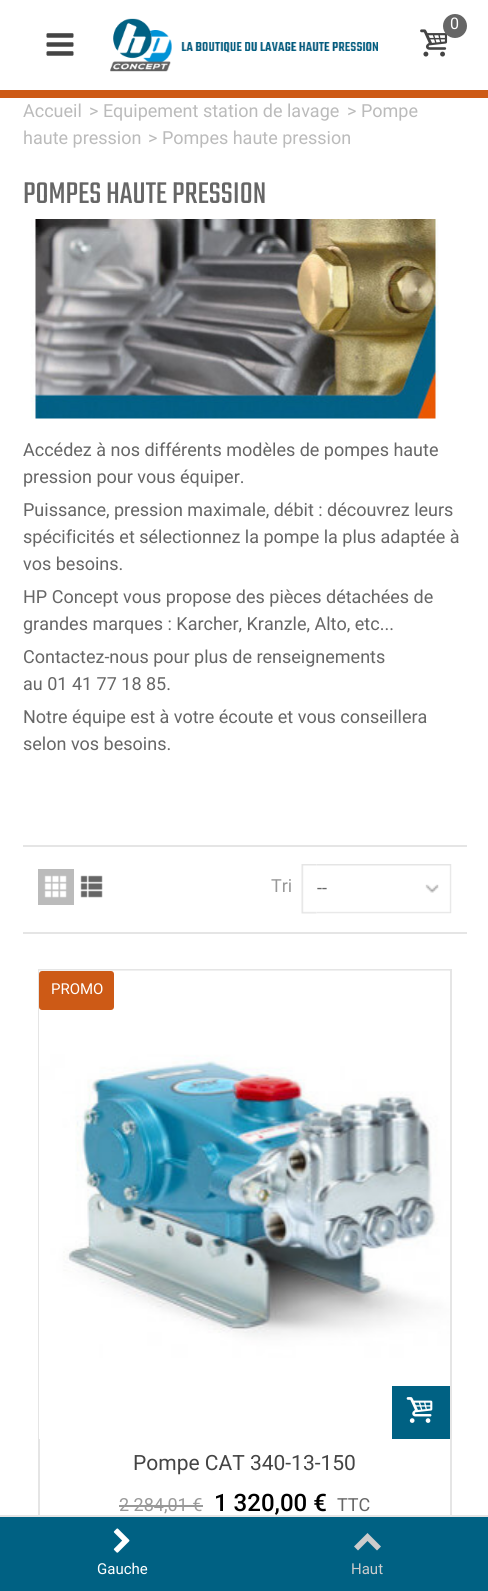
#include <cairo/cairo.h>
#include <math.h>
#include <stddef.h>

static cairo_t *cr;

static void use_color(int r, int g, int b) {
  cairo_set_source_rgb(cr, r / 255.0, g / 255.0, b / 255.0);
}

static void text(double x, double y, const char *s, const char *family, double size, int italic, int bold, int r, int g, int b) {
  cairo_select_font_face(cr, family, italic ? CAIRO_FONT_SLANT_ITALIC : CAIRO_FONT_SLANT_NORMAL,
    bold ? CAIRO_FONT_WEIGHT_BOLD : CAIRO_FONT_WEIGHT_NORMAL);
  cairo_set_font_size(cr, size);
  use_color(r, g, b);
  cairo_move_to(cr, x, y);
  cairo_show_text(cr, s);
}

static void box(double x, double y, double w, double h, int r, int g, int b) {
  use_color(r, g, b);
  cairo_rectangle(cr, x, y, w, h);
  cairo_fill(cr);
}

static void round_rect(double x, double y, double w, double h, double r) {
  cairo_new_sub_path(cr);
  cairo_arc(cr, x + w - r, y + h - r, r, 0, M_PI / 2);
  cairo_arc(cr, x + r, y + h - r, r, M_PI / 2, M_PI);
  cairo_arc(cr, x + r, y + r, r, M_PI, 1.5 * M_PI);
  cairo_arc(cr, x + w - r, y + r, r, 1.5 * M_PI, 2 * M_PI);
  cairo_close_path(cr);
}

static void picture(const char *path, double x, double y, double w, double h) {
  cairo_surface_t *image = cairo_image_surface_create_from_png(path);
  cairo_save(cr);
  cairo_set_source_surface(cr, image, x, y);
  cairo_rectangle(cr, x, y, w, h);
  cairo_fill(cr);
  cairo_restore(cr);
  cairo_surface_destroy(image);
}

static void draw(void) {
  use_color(255, 255, 255);
  cairo_paint(cr);
  picture("img_01.png", 46, 33, 28, 23);
  picture("img_02.png", 110, 18, 268, 54);
  picture("img_03.png", 420, 29, 28, 28);
  use_color(102, 102, 102);
  cairo_arc(cr, 455, 26, 12, 0, 2 * M_PI);
  cairo_fill(cr);
  box(0, 90, 488, 8, 205, 90, 22);
  picture("img_04.png", 30, 219, 409, 200);
  box(23, 845, 444, 2, 229, 229, 229);
  box(23, 932, 444, 2, 229, 229, 229);
  box(38, 869, 36, 36, 187, 187, 187);
  picture("img_05.png", 44, 875, 23, 23);
  picture("img_06.png", 80, 875, 23, 23);
  picture("img_07.png", 301, 864, 16, 50);
  picture("img_08.png", 316, 864, 136, 50);
  cairo_rectangle(cr, 39, 970, 412, 598);
  use_color(229, 229, 229);
  cairo_stroke(cr);
  picture("img_09.png", 39, 970, 411, 469);
  use_color(205, 90, 22);
  round_rect(40, 972, 73, 37, 2);
  cairo_fill_preserve(cr);
  cairo_stroke(cr);
  box(392, 1386, 58, 53, 0, 97, 131);
  picture("img_10.png", 406, 1397, 27, 26);
  box(119, 1505, 84, 2, 153, 153, 153);
  box(0, 1517, 488, 74, 0, 97, 131);
  box(0, 1515, 488, 2, 229, 229, 229);
  picture("img_11.png", 113, 1528, 17, 25);
  use_color(204, 204, 204);
  cairo_new_path(cr);
  cairo_move_to(cr, 354, 1546.5);
  cairo_line_to(cr, 367.5, 1533);
  cairo_line_to(cr, 381, 1546.5);
  cairo_line_to(cr, 377, 1550.5);
  cairo_line_to(cr, 367.5, 1541);
  cairo_line_to(cr, 358, 1550.5);
  cairo_close_path(cr);
  cairo_fill(cr);
  text(450, 29, "0", "Roboto", 16, 0, 0, 255, 255, 255);
  text(23, 117, "Accueil", "Roboto", 18, 0, 0, 187, 187, 187);
  text(89, 117, "> Equipement station de lavage", "Roboto", 18, 0, 0, 187, 187, 187);
  text(347, 117, "> Pompe", "Roboto", 18, 0, 0, 187, 187, 187);
  text(23, 144, "haute pression", "Roboto", 18, 0, 0, 187, 187, 187);
  text(148, 144, "> Pompes haute pression", "Roboto", 18, 0, 0, 187, 187, 187);
  text(23, 203, "POMPES HAUTE PRESSION", "Teko", 33, 0, 0, 102, 102, 102);
  text(23, 456, "Accédez à nos différents modèles de pompes haute", "Roboto", 18, 0, 0, 102, 102, 102);
  text(23, 483, "pression pour vous équiper.", "Roboto", 18, 0, 0, 102, 102, 102);
  text(23, 516, "Puissance, pression maximale, débit : découvrez leurs", "Roboto", 18, 0, 0, 102, 102, 102);
  text(23, 543, "spécificités et sélectionnez la pompe la plus adaptée à", "Roboto", 18, 0, 0, 102, 102, 102);
  text(23, 570, "vos besoins.", "Roboto", 18, 0, 0, 102, 102, 102);
  text(23, 603, "HP Concept vous propose des pièces détachées de", "Roboto", 18, 0, 0, 102, 102, 102);
  text(23, 630, "grandes marques : Karcher, Kranzle, Alto, etc...", "Roboto", 18, 0, 0, 102, 102, 102);
  text(23, 663, "Contactez-nous pour plus de renseignements", "Roboto", 18, 0, 0, 102, 102, 102);
  text(23, 690, "au 01 41 77 18 85.", "Roboto", 18, 0, 0, 102, 102, 102);
  text(23, 723, "Notre équipe est à votre écoute et vous conseillera", "Roboto", 18, 0, 0, 102, 102, 102);
  text(23, 750, "selon vos besoins.", "Roboto", 18, 0, 0, 102, 102, 102);
  text(271, 892, "Tri", "Roboto", 18, 0, 0, 153, 153, 153);
  text(317, 894, "--", "Roboto", 18, 0, 0, 102, 102, 102);
  text(51, 994, "PROMO", "Roboto", 15, 0, 0, 255, 255, 255);
  text(133, 1470, "Pompe CAT 340-13-150", "Roboto", 21, 0, 0, 68, 68, 68);
  text(119, 1511, "2 284,01 €", "Roboto", 18, 0, 0, 153, 153, 153);
  text(214, 1511, "1 320,00 €", "Roboto Medium", 24, 0, 0, 0, 0, 0);
  text(337, 1511, "TTC", "Roboto", 18, 0, 0, 102, 102, 102);
  text(97, 1574, "Gauche", "Roboto", 15, 0, 0, 255, 255, 255);
  text(351, 1574, "Haut", "Roboto", 15, 0, 0, 204, 204, 204);
}

int main(void) {
  cairo_surface_t *surface = cairo_image_surface_create(CAIRO_FORMAT_RGB24, 488, 1591);
  cr = cairo_create(surface);
  cairo_font_options_t *options = cairo_font_options_create();
  cairo_font_options_set_hint_metrics(options, CAIRO_HINT_METRICS_OFF);
  cairo_font_options_set_hint_style(options, CAIRO_HINT_STYLE_NONE);
  cairo_set_font_options(cr, options);
  cairo_set_miter_limit(cr, 4);
  draw();
  cairo_surface_write_to_png(surface, "out.png");
  cairo_font_options_destroy(options);
  cairo_destroy(cr);
  cairo_surface_destroy(surface);
  return 0;
}
